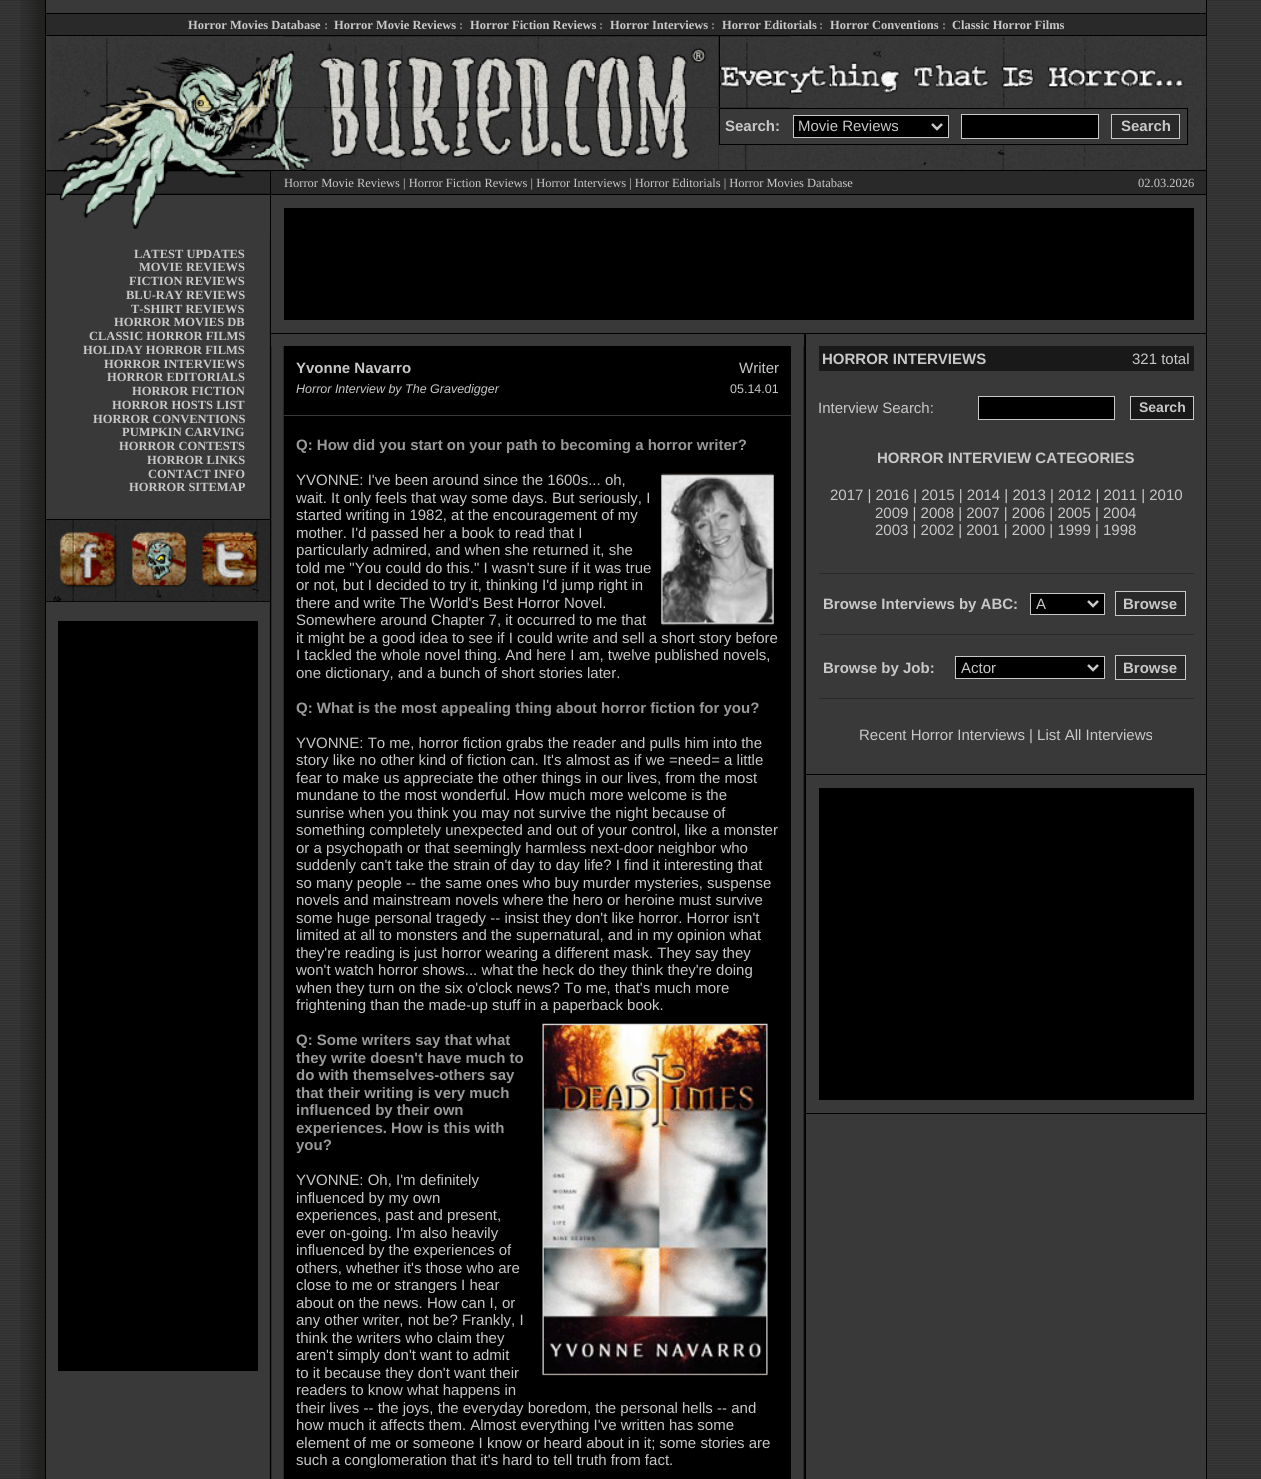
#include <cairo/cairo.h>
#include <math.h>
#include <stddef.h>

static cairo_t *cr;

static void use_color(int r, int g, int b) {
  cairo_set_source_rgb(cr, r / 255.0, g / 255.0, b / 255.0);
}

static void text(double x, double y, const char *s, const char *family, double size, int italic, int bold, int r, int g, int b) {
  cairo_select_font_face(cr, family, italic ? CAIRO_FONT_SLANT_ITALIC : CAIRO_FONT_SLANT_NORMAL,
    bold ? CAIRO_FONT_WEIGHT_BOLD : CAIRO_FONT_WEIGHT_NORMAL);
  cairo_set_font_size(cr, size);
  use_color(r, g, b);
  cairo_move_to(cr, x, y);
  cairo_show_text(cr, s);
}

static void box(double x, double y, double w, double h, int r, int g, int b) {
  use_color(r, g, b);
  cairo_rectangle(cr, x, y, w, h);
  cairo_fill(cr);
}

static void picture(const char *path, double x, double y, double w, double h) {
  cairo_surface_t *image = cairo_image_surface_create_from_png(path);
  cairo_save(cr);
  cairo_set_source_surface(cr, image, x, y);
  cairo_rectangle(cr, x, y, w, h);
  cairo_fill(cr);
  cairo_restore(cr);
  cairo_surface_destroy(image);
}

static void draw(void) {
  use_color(255, 255, 255);
  cairo_paint(cr);
  picture("img_01.png", 0, 0, 1261, 1479);
  picture("img_02.png", 20, 0, 25, 1479);
  box(45, 0, 1, 1479, 0, 0, 0);
  box(46, 36, 1160, 1443, 57, 57, 57);
  picture("img_03.png", 269, 36, 537, 1443);
  box(46, 0, 1160, 13, 57, 57, 57);
  box(46, 13, 1160, 1, 0, 0, 0);
  box(46, 14, 1160, 21, 41, 41, 41);
  box(46, 35, 1160, 1, 0, 0, 0);
  picture("img_04.png", 50, 36, 220, 72);
  picture("img_09.png", 718, 107, 488, 63);
  picture("img_05.png", 270, 36, 449, 72);
  box(1206, 0, 1, 1479, 0, 0, 0);
  picture("img_06.png", 720, 36, 487, 72);
  picture("img_07.png", 50, 107, 220, 63);
  picture("img_08.png", 270, 107, 449, 63);
  use_color(57, 57, 57);
  cairo_rectangle(cr, 719.5, 108.5, 468, 36);
  cairo_fill_preserve(cr);
  use_color(0, 0, 0);
  cairo_set_line_width(cr, 1);
  cairo_stroke(cr);
  cairo_rectangle(cr, 793.5, 115.5, 155, 22);
  cairo_fill_preserve(cr);
  use_color(200, 200, 200);
  cairo_stroke(cr);
  cairo_new_path(cr);
  cairo_move_to(cr, 932, 124);
  cairo_line_to(cr, 937, 129);
  cairo_line_to(cr, 942, 124);
  cairo_set_line_width(cr, 2.5);
  cairo_stroke(cr);
  use_color(0, 0, 0);
  cairo_rectangle(cr, 961.5, 114.5, 137, 24);
  cairo_fill_preserve(cr);
  use_color(200, 200, 200);
  cairo_set_line_width(cr, 1);
  cairo_stroke(cr);
  use_color(41, 41, 41);
  cairo_rectangle(cr, 1111.5, 114.5, 68, 24);
  cairo_fill_preserve(cr);
  use_color(200, 200, 200);
  cairo_stroke(cr);
  picture("img_10.png", 46, 170, 224, 25);
  box(270, 170, 1, 1309, 0, 0, 0);
  box(271, 170, 935, 1, 0, 0, 0);
  box(272, 171, 934, 23, 41, 41, 41);
  box(271, 194, 935, 1, 0, 0, 0);
  picture("img_11.png", 60, 195, 210, 43);
  box(46, 519, 224, 1, 0, 0, 0);
  box(46, 601, 224, 1, 0, 0, 0);
  picture("img_12.png", 46, 520, 75, 82);
  picture("img_13.png", 121, 520, 74, 82);
  picture("img_14.png", 195, 520, 75, 82);
  box(58, 621, 200, 750, 0, 0, 0);
  box(271, 195, 535, 13, 57, 57, 57);
  box(271, 208, 13, 112, 57, 57, 57);
  box(789, 208, 405, 112, 0, 0, 0);
  box(271, 320, 535, 13, 57, 57, 57);
  box(271, 333, 935, 1, 0, 0, 0);
  box(271, 334, 533, 12, 57, 57, 57);
  box(789, 346, 2, 1133, 0, 0, 0);
  box(284, 415, 507, 1, 57, 57, 57);
  picture("img_15.png", 661, 473, 113, 153);
  picture("img_16.png", 542, 1023, 226, 353);
  box(805, 334, 1, 1145, 0, 0, 0);
  box(819, 346, 375, 25, 25, 25, 25);
  use_color(0, 0, 0);
  cairo_rectangle(cr, 978.5, 396.5, 136, 23);
  cairo_fill_preserve(cr);
  use_color(200, 200, 200);
  cairo_stroke(cr);
  use_color(25, 25, 25);
  cairo_rectangle(cr, 1130.5, 396.5, 63, 23);
  cairo_fill_preserve(cr);
  use_color(200, 200, 200);
  cairo_stroke(cr);
  box(819, 573, 375, 1, 41, 41, 41);
  box(819, 634, 375, 1, 41, 41, 41);
  use_color(0, 0, 0);
  cairo_rectangle(cr, 1030.5, 593.5, 74, 21);
  cairo_fill_preserve(cr);
  use_color(200, 200, 200);
  cairo_stroke(cr);
  cairo_new_path(cr);
  cairo_move_to(cr, 1088, 601);
  cairo_line_to(cr, 1093, 606);
  cairo_line_to(cr, 1098, 601);
  cairo_set_line_width(cr, 2.5);
  cairo_stroke(cr);
  use_color(41, 41, 41);
  cairo_rectangle(cr, 1115.5, 591.5, 70, 24);
  cairo_fill_preserve(cr);
  use_color(200, 200, 200);
  cairo_set_line_width(cr, 1);
  cairo_stroke(cr);
  box(819, 698, 375, 1, 41, 41, 41);
  use_color(0, 0, 0);
  cairo_rectangle(cr, 955.5, 656.5, 149, 22);
  cairo_fill_preserve(cr);
  use_color(200, 200, 200);
  cairo_stroke(cr);
  cairo_new_path(cr);
  cairo_move_to(cr, 1088, 665);
  cairo_line_to(cr, 1093, 670);
  cairo_line_to(cr, 1098, 665);
  cairo_set_line_width(cr, 2.5);
  cairo_stroke(cr);
  use_color(41, 41, 41);
  cairo_rectangle(cr, 1115.5, 655.5, 70, 24);
  cairo_fill_preserve(cr);
  use_color(200, 200, 200);
  cairo_set_line_width(cr, 1);
  cairo_stroke(cr);
  box(806, 774, 400, 1, 0, 0, 0);
  box(819, 788, 375, 312, 0, 0, 0);
  box(806, 1113, 400, 1, 0, 0, 0);
  text(188, 29, "Horror Movies Database", "Liberation Serif", 12.5, 0, 1, 200, 200, 200);
  text(324, 29, ":", "Liberation Serif", 12.5, 0, 1, 136, 136, 136);
  text(334, 29, "Horror Movie Reviews", "Liberation Serif", 12.5, 0, 1, 200, 200, 200);
  text(459, 29, ":", "Liberation Serif", 12.5, 0, 1, 136, 136, 136);
  text(470, 29, "Horror Fiction Reviews", "Liberation Serif", 12.5, 0, 1, 200, 200, 200);
  text(599, 29, ":", "Liberation Serif", 12.5, 0, 1, 136, 136, 136);
  text(610, 29, "Horror Interviews", "Liberation Serif", 12.5, 0, 1, 200, 200, 200);
  text(711, 29, ":", "Liberation Serif", 12.5, 0, 1, 136, 136, 136);
  text(722, 29, "Horror Editorials", "Liberation Serif", 12.5, 0, 1, 200, 200, 200);
  text(819, 29, ":", "Liberation Serif", 12.5, 0, 1, 136, 136, 136);
  text(830, 29, "Horror Conventions", "Liberation Serif", 12.5, 0, 1, 200, 200, 200);
  text(942, 29, ":", "Liberation Serif", 12.5, 0, 1, 136, 136, 136);
  text(952, 29, "Classic Horror Films", "Liberation Serif", 12.5, 0, 1, 200, 200, 200);
  text(725, 131, "Search:", "Liberation Sans", 15, 0, 1, 200, 200, 200);
  text(798, 131, "Movie Reviews", "Liberation Sans", 15, 0, 0, 200, 200, 200);
  text(1121, 131, "Search", "Liberation Sans", 15, 0, 1, 200, 200, 200);
  text(284, 187, "Horror Movie Reviews | Horror Fiction Reviews | Horror Interviews | Horror Editorials | Horror Movies Database", "Liberation Serif", 12.5, 0, 0, 200, 200, 200);
  text(1138, 187, "02.03.2026", "Liberation Serif", 12.5, 0, 0, 200, 200, 200);
  text(134, 258, "LATEST UPDATES", "Liberation Serif", 12.5, 0, 1, 200, 200, 200);
  text(139, 271, "MOVIE REVIEWS", "Liberation Serif", 12.5, 0, 1, 200, 200, 200);
  text(129, 285, "FICTION REVIEWS", "Liberation Serif", 12.5, 0, 1, 200, 200, 200);
  text(126, 299, "BLU-RAY REVIEWS", "Liberation Serif", 12.5, 0, 1, 200, 200, 200);
  text(131, 313, "T-SHIRT REVIEWS", "Liberation Serif", 12.5, 0, 1, 200, 200, 200);
  text(114, 326, "HORROR MOVIES DB", "Liberation Serif", 12.5, 0, 1, 200, 200, 200);
  text(89, 340, "CLASSIC HORROR FILMS", "Liberation Serif", 12.5, 0, 1, 200, 200, 200);
  text(83, 354, "HOLIDAY HORROR FILMS", "Liberation Serif", 12.5, 0, 1, 200, 200, 200);
  text(104, 368, "HORROR INTERVIEWS", "Liberation Serif", 12.5, 0, 1, 200, 200, 200);
  text(107, 381, "HORROR EDITORIALS", "Liberation Serif", 12.5, 0, 1, 200, 200, 200);
  text(132, 395, "HORROR FICTION", "Liberation Serif", 12.5, 0, 1, 200, 200, 200);
  text(112, 409, "HORROR HOSTS LIST", "Liberation Serif", 12.5, 0, 1, 200, 200, 200);
  text(93, 423, "HORROR CONVENTIONS", "Liberation Serif", 12.5, 0, 1, 200, 200, 200);
  text(122, 436, "PUMPKIN CARVING", "Liberation Serif", 12.5, 0, 1, 200, 200, 200);
  text(119, 450, "HORROR CONTESTS", "Liberation Serif", 12.5, 0, 1, 200, 200, 200);
  text(147, 464, "HORROR LINKS", "Liberation Serif", 12.5, 0, 1, 200, 200, 200);
  text(148, 478, "CONTACT INFO", "Liberation Serif", 12.5, 0, 1, 200, 200, 200);
  text(129, 491, "HORROR SITEMAP", "Liberation Serif", 12.5, 0, 1, 200, 200, 200);
  text(296, 373, "Yvonne Navarro", "Liberation Sans", 15, 0, 1, 200, 200, 200);
  text(739, 373, "Writer", "Liberation Sans", 15, 0, 0, 200, 200, 200);
  text(296, 393, "Horror Interview by The Gravedigger", "Liberation Sans", 12.5, 1, 0, 200, 200, 200);
  text(730, 393, "05.14.01", "Liberation Sans", 12.5, 0, 0, 200, 200, 200);
  text(296, 450, "Q: How did you start on your path to becoming a horror writer?", "Liberation Sans", 15, 0, 1, 153, 153, 153);
  text(296, 485, "YVONNE: I've been around since the 1600s... oh,", "Liberation Sans", 15, 0, 0, 200, 200, 200);
  text(296, 503, "wait. It only feels that way some days. But seriously, I", "Liberation Sans", 15, 0, 0, 200, 200, 200);
  text(296, 520, "started writing in 1982, at the encouragement of my", "Liberation Sans", 15, 0, 0, 200, 200, 200);
  text(296, 538, "mother. I'd passed her a book to read that I", "Liberation Sans", 15, 0, 0, 200, 200, 200);
  text(296, 555, "particularly admired, and when she returned it, she", "Liberation Sans", 15, 0, 0, 200, 200, 200);
  text(296, 573, "told me \"You could do this.\" I wasn't sure if it was true", "Liberation Sans", 15, 0, 0, 200, 200, 200);
  text(296, 590, "or not, but I decided to try it, thinking I'd jump right in", "Liberation Sans", 15, 0, 0, 200, 200, 200);
  text(296, 608, "there and write The World's Best Horror Novel.", "Liberation Sans", 15, 0, 0, 200, 200, 200);
  text(296, 625, "Somewhere around Chapter 7, it occurred to me that", "Liberation Sans", 15, 0, 0, 200, 200, 200);
  text(296, 643, "it might be a good idea to see if I could write and sell a short story before", "Liberation Sans", 15, 0, 0, 200, 200, 200);
  text(296, 660, "I tackled the whole novel thing. And here I am, twelve published novels,", "Liberation Sans", 15, 0, 0, 200, 200, 200);
  text(296, 678, "one dictionary, and a bunch of short stories later.", "Liberation Sans", 15, 0, 0, 200, 200, 200);
  text(296, 713, "Q: What is the most appealing thing about horror fiction for you?", "Liberation Sans", 15, 0, 1, 153, 153, 153);
  text(296, 748, "YVONNE: To me, horror fiction grabs the reader and pulls him into the", "Liberation Sans", 15, 0, 0, 200, 200, 200);
  text(296, 765, "story like no other kind of fiction can. It's almost as if we =need= a little", "Liberation Sans", 15, 0, 0, 200, 200, 200);
  text(296, 783, "fear to make us appreciate the other things in our lives, from the most", "Liberation Sans", 15, 0, 0, 200, 200, 200);
  text(296, 800, "mundane to the most wonderful. How much more welcome is the", "Liberation Sans", 15, 0, 0, 200, 200, 200);
  text(296, 818, "sunrise when you think you may not survive the night because of", "Liberation Sans", 15, 0, 0, 200, 200, 200);
  text(296, 835, "something completely unexpected and out of your control, like a monster", "Liberation Sans", 15, 0, 0, 200, 200, 200);
  text(296, 853, "or a psychopath or that seemingly harmless next-door neighbor who", "Liberation Sans", 15, 0, 0, 200, 200, 200);
  text(296, 870, "suddenly can't take the strain of day to day life? I find it interesting that", "Liberation Sans", 15, 0, 0, 200, 200, 200);
  text(296, 888, "so many people -- the same ones who buy murder mysteries, suspense", "Liberation Sans", 15, 0, 0, 200, 200, 200);
  text(296, 905, "novels and mainstream novels where the hero or heroine must survive", "Liberation Sans", 15, 0, 0, 200, 200, 200);
  text(296, 923, "some huge personal tragedy -- insist they don't like horror. Horror isn't", "Liberation Sans", 15, 0, 0, 200, 200, 200);
  text(296, 940, "limited at all to monsters and the supernatural, and in my opinion what", "Liberation Sans", 15, 0, 0, 200, 200, 200);
  text(296, 958, "they're reading is just horror wearing a different mask. They say they", "Liberation Sans", 15, 0, 0, 200, 200, 200);
  text(296, 975, "won't watch horror shows... what the heck do they think they're doing", "Liberation Sans", 15, 0, 0, 200, 200, 200);
  text(296, 993, "when they turn on the six o'clock news? To me, that's much more", "Liberation Sans", 15, 0, 0, 200, 200, 200);
  text(296, 1010, "frightening than the made-up stuff in a paperback book.", "Liberation Sans", 15, 0, 0, 200, 200, 200);
  text(296, 1045, "Q: Some writers say that what", "Liberation Sans", 15, 0, 1, 153, 153, 153);
  text(296, 1063, "they write doesn't have much to", "Liberation Sans", 15, 0, 1, 153, 153, 153);
  text(296, 1080, "do with themselves-others say", "Liberation Sans", 15, 0, 1, 153, 153, 153);
  text(296, 1098, "that their writing is very much", "Liberation Sans", 15, 0, 1, 153, 153, 153);
  text(296, 1115, "influenced by their own", "Liberation Sans", 15, 0, 1, 153, 153, 153);
  text(296, 1133, "experiences. How is this with", "Liberation Sans", 15, 0, 1, 153, 153, 153);
  text(296, 1150, "you?", "Liberation Sans", 15, 0, 1, 153, 153, 153);
  text(296, 1185, "YVONNE: Oh, I'm definitely", "Liberation Sans", 15, 0, 0, 200, 200, 200);
  text(296, 1203, "influenced by my own", "Liberation Sans", 15, 0, 0, 200, 200, 200);
  text(296, 1220, "experiences, past and present,", "Liberation Sans", 15, 0, 0, 200, 200, 200);
  text(296, 1238, "ever on-going. I'm also heavily", "Liberation Sans", 15, 0, 0, 200, 200, 200);
  text(296, 1255, "influenced by the experiences of", "Liberation Sans", 15, 0, 0, 200, 200, 200);
  text(296, 1273, "others, whether it's those who are", "Liberation Sans", 15, 0, 0, 200, 200, 200);
  text(296, 1290, "close to me or strangers I hear", "Liberation Sans", 15, 0, 0, 200, 200, 200);
  text(296, 1308, "about on the news. How can I, or", "Liberation Sans", 15, 0, 0, 200, 200, 200);
  text(296, 1325, "any other writer, not be? Frankly, I", "Liberation Sans", 15, 0, 0, 200, 200, 200);
  text(296, 1343, "think the writers who claim they", "Liberation Sans", 15, 0, 0, 200, 200, 200);
  text(296, 1360, "aren't simply don't want to admit", "Liberation Sans", 15, 0, 0, 200, 200, 200);
  text(296, 1378, "to it because they don't want their", "Liberation Sans", 15, 0, 0, 200, 200, 200);
  text(296, 1395, "readers to know what happens in", "Liberation Sans", 15, 0, 0, 200, 200, 200);
  text(296, 1413, "their lives -- the joys, the everyday boredom, the personal hells -- and", "Liberation Sans", 15, 0, 0, 200, 200, 200);
  text(296, 1430, "how much it affects them. Almost everything I've written has some", "Liberation Sans", 15, 0, 0, 200, 200, 200);
  text(296, 1448, "element of me or someone I know or heard about in it; some stories are", "Liberation Sans", 15, 0, 0, 200, 200, 200);
  text(296, 1465, "such a conglomeration that it's hard to tell truth from fact.", "Liberation Sans", 15, 0, 0, 200, 200, 200);
  text(822, 364, "HORROR INTERVIEWS", "Liberation Sans", 15, 0, 1, 200, 200, 200);
  text(1132, 364, "321 total", "Liberation Sans", 15, 0, 0, 200, 200, 200);
  text(818, 413, "Interview Search:", "Liberation Sans", 15, 0, 0, 200, 200, 200);
  text(1139, 412, "Search", "Liberation Sans", 14, 0, 1, 200, 200, 200);
  text(877, 463, "HORROR INTERVIEW CATEGORIES", "Liberation Sans", 15, 0, 1, 200, 200, 200);
  text(830, 500, "2017 | 2016 | 2015 | 2014 | 2013 | 2012 | 2011 | 2010", "Liberation Sans", 15, 0, 0, 200, 200, 200);
  text(875, 518, "2009 | 2008 | 2007 | 2006 | 2005 | 2004", "Liberation Sans", 15, 0, 0, 200, 200, 200);
  text(875, 535, "2003 | 2002 | 2001 | 2000 | 1999 | 1998", "Liberation Sans", 15, 0, 0, 200, 200, 200);
  text(823, 609, "Browse Interviews by ABC:", "Liberation Sans", 15, 0, 1, 200, 200, 200);
  text(1036, 609, "A", "Liberation Sans", 15, 0, 0, 200, 200, 200);
  text(1123, 609, "Browse", "Liberation Sans", 15, 0, 1, 200, 200, 200);
  text(823, 673, "Browse by Job:", "Liberation Sans", 15, 0, 1, 200, 200, 200);
  text(961, 673, "Actor", "Liberation Sans", 15, 0, 0, 200, 200, 200);
  text(1123, 673, "Browse", "Liberation Sans", 15, 0, 1, 200, 200, 200);
  text(859, 740, "Recent Horror Interviews | List All Interviews", "Liberation Sans", 15, 0, 0, 200, 200, 200);
}

int main(void) {
  cairo_surface_t *surface = cairo_image_surface_create(CAIRO_FORMAT_RGB24, 1261, 1479);
  cr = cairo_create(surface);
  cairo_font_options_t *options = cairo_font_options_create();
  cairo_font_options_set_hint_metrics(options, CAIRO_HINT_METRICS_OFF);
  cairo_font_options_set_hint_style(options, CAIRO_HINT_STYLE_NONE);
  cairo_set_font_options(cr, options);
  cairo_set_miter_limit(cr, 4);
  draw();
  cairo_surface_write_to_png(surface, "out.png");
  cairo_font_options_destroy(options);
  cairo_destroy(cr);
  cairo_surface_destroy(surface);
  return 0;
}
